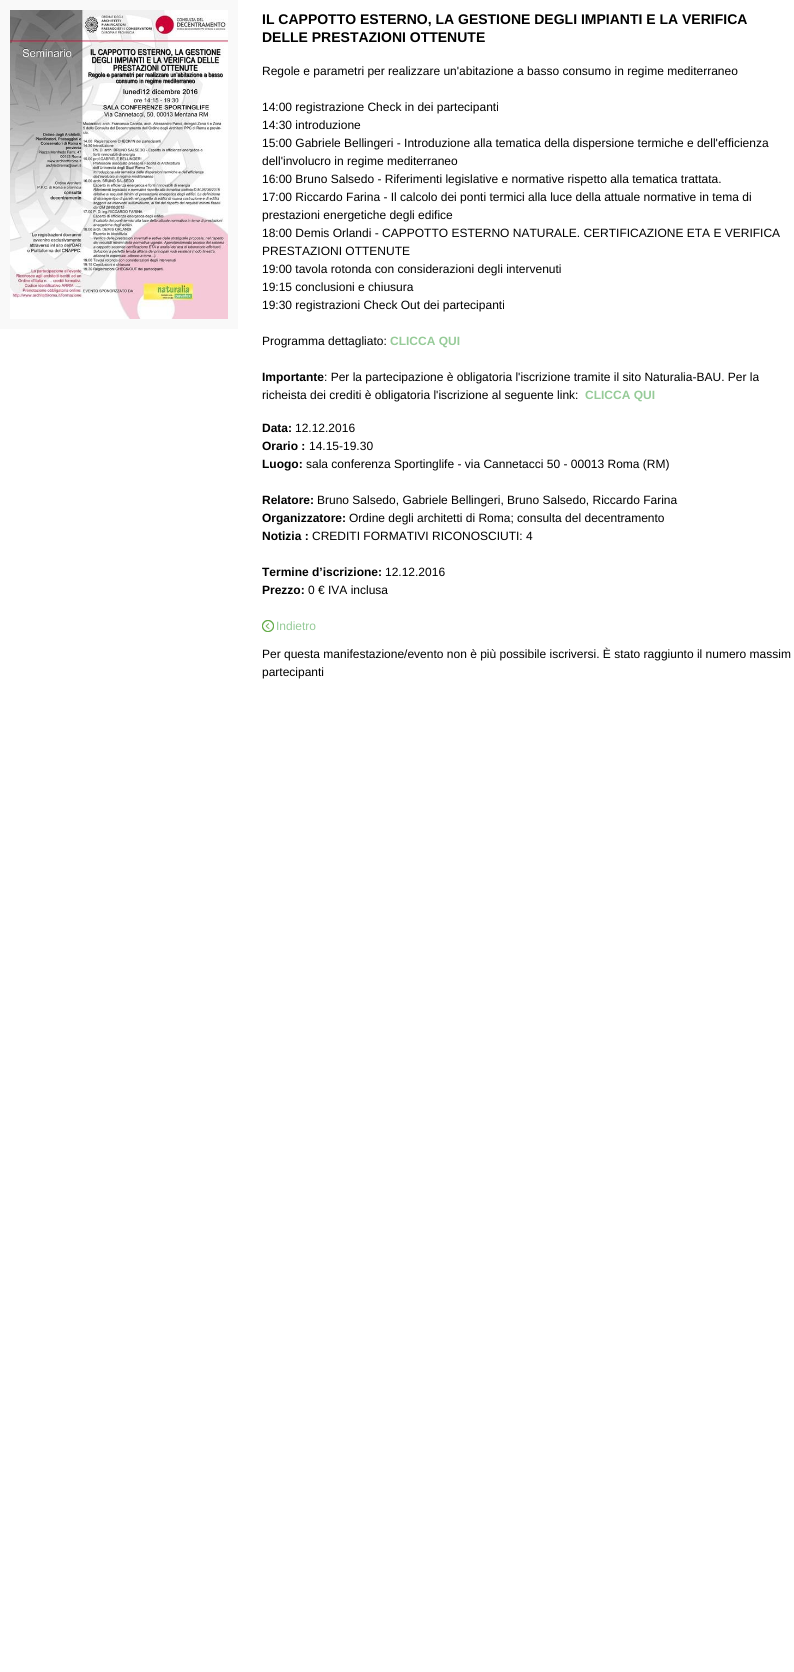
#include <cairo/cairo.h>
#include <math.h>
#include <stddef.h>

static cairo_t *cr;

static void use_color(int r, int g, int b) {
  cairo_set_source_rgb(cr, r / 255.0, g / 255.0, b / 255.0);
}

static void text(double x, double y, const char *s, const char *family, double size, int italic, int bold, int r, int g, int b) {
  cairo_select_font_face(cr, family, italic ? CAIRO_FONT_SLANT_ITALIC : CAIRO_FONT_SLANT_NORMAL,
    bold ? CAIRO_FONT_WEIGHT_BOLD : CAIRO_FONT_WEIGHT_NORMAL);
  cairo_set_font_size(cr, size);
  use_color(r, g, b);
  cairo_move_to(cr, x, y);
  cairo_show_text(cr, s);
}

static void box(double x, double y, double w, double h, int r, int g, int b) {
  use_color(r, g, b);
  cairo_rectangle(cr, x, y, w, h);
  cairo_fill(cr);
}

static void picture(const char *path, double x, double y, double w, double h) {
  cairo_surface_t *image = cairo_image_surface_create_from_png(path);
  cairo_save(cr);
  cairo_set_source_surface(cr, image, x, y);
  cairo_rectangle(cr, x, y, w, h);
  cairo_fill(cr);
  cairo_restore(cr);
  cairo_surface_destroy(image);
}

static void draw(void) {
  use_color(255, 255, 255);
  cairo_paint(cr);
  box(0, 0, 238, 329, 249, 249, 249);
  picture("img_01.png", 10, 10, 218, 309);
  picture("img_02.png", 262, 620, 12, 12);
  text(262, 24, "IL CAPPOTTO ESTERNO, LA GESTIONE DEGLI IMPIANTI E LA VERIFICA", "Liberation Sans", 14, 0, 1, 0, 0, 0);
  text(262, 42, "DELLE PRESTAZIONI OTTENUTE", "Liberation Sans", 14, 0, 1, 0, 0, 0);
  text(262, 75, "Regole e parametri per realizzare un'abitazione a basso consumo in regime mediterraneo", "Liberation Sans", 12, 0, 0, 0, 0, 0);
  text(262, 111, "14:00 registrazione Check in dei partecipanti", "Liberation Sans", 12, 0, 0, 0, 0, 0);
  text(262, 129, "14:30 introduzione", "Liberation Sans", 12, 0, 0, 0, 0, 0);
  text(262, 147, "15:00 Gabriele Bellingeri - Introduzione alla tematica della dispersione termiche e dell'efficienza", "Liberation Sans", 12, 0, 0, 0, 0, 0);
  text(262, 165, "dell'involucro in regime mediterraneo", "Liberation Sans", 12, 0, 0, 0, 0, 0);
  text(262, 183, "16:00 Bruno Salsedo - Riferimenti legislative e normative rispetto alla tematica trattata.", "Liberation Sans", 12, 0, 0, 0, 0, 0);
  text(262, 201, "17:00 Riccardo Farina - Il calcolo dei ponti termici alla luce della attuale normative in tema di", "Liberation Sans", 12, 0, 0, 0, 0, 0);
  text(262, 219, "prestazioni energetiche degli edifice", "Liberation Sans", 12, 0, 0, 0, 0, 0);
  text(262, 237, "18:00 Demis Orlandi - CAPPOTTO ESTERNO NATURALE. CERTIFICAZIONE ETA E VERIFICA", "Liberation Sans", 12, 0, 0, 0, 0, 0);
  text(262, 255, "PRESTAZIONI OTTENUTE", "Liberation Sans", 12, 0, 0, 0, 0, 0);
  text(262, 273, "19:00 tavola rotonda con considerazioni degli intervenuti", "Liberation Sans", 12, 0, 0, 0, 0, 0);
  text(262, 291, "19:15 conclusioni e chiusura", "Liberation Sans", 12, 0, 0, 0, 0, 0);
  text(262, 309, "19:30 registrazioni Check Out dei partecipanti", "Liberation Sans", 12, 0, 0, 0, 0, 0);
  text(262, 345, "Programma dettagliato:", "Liberation Sans", 12, 0, 0, 0, 0, 0);
  text(390, 345, "CLICCA QUI", "Liberation Sans", 12, 0, 1, 150, 203, 152);
  text(262, 381, "Importante", "Liberation Sans", 12, 0, 1, 0, 0, 0);
  text(324, 381, ": Per la partecipazione è obligatoria l'iscrizione tramite il sito Naturalia-BAU. Per la", "Liberation Sans", 12, 0, 0, 0, 0, 0);
  text(262, 399, "richeista dei crediti è obligatoria l'iscrizione al seguente link:", "Liberation Sans", 12, 0, 0, 0, 0, 0);
  text(585, 399, "CLICCA QUI", "Liberation Sans", 12, 0, 1, 150, 203, 152);
  text(262, 432, "Data:", "Liberation Sans", 12, 0, 1, 0, 0, 0);
  text(295, 432, "12.12.2016", "Liberation Sans", 12, 0, 0, 0, 0, 0);
  text(262, 450, "Orario :", "Liberation Sans", 12, 0, 1, 0, 0, 0);
  text(309, 450, "14.15-19.30", "Liberation Sans", 12, 0, 0, 0, 0, 0);
  text(262, 468, "Luogo:", "Liberation Sans", 12, 0, 1, 0, 0, 0);
  text(306, 468, "sala conferenza Sportinglife - via Cannetacci 50 - 00013 Roma (RM)", "Liberation Sans", 12, 0, 0, 0, 0, 0);
  text(262, 504, "Relatore:", "Liberation Sans", 12, 0, 1, 0, 0, 0);
  text(317, 504, "Bruno Salsedo, Gabriele Bellingeri, Bruno Salsedo, Riccardo Farina", "Liberation Sans", 12, 0, 0, 0, 0, 0);
  text(262, 522, "Organizzatore:", "Liberation Sans", 12, 0, 1, 0, 0, 0);
  text(349, 522, "Ordine degli architetti di Roma; consulta del decentramento", "Liberation Sans", 12, 0, 0, 0, 0, 0);
  text(262, 540, "Notizia :", "Liberation Sans", 12, 0, 1, 0, 0, 0);
  text(312, 540, "CREDITI FORMATIVI RICONOSCIUTI: 4", "Liberation Sans", 12, 0, 0, 0, 0, 0);
  text(262, 576, "Termine d’iscrizione:", "Liberation Sans", 12, 0, 1, 0, 0, 0);
  text(385, 576, "12.12.2016", "Liberation Sans", 12, 0, 0, 0, 0, 0);
  text(262, 594, "Prezzo:", "Liberation Sans", 12, 0, 1, 0, 0, 0);
  text(308, 594, "0 € IVA inclusa", "Liberation Sans", 12, 0, 0, 0, 0, 0);
  text(276, 630, "Indietro", "Liberation Sans", 12, 0, 0, 150, 203, 152);
  text(262, 658, "Per questa manifestazione/evento non è più possibile iscriversi. È stato raggiunto il numero massim", "Liberation Sans", 12, 0, 0, 0, 0, 0);
  text(262, 676, "partecipanti", "Liberation Sans", 12, 0, 0, 0, 0, 0);
}

int main(void) {
  cairo_surface_t *surface = cairo_image_surface_create(CAIRO_FORMAT_RGB24, 794, 1672);
  cr = cairo_create(surface);
  cairo_font_options_t *options = cairo_font_options_create();
  cairo_font_options_set_hint_metrics(options, CAIRO_HINT_METRICS_OFF);
  cairo_font_options_set_hint_style(options, CAIRO_HINT_STYLE_NONE);
  cairo_set_font_options(cr, options);
  cairo_set_miter_limit(cr, 4);
  draw();
  cairo_surface_write_to_png(surface, "out.png");
  cairo_font_options_destroy(options);
  cairo_destroy(cr);
  cairo_surface_destroy(surface);
  return 0;
}
